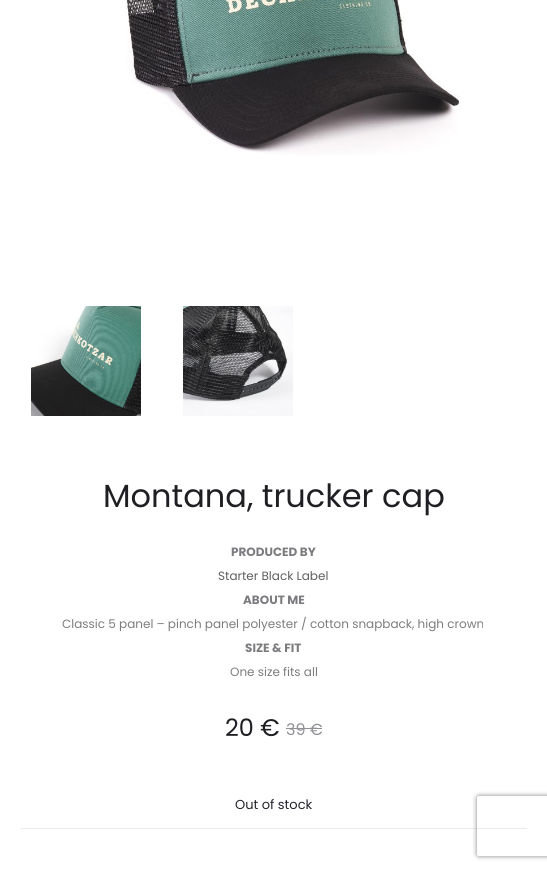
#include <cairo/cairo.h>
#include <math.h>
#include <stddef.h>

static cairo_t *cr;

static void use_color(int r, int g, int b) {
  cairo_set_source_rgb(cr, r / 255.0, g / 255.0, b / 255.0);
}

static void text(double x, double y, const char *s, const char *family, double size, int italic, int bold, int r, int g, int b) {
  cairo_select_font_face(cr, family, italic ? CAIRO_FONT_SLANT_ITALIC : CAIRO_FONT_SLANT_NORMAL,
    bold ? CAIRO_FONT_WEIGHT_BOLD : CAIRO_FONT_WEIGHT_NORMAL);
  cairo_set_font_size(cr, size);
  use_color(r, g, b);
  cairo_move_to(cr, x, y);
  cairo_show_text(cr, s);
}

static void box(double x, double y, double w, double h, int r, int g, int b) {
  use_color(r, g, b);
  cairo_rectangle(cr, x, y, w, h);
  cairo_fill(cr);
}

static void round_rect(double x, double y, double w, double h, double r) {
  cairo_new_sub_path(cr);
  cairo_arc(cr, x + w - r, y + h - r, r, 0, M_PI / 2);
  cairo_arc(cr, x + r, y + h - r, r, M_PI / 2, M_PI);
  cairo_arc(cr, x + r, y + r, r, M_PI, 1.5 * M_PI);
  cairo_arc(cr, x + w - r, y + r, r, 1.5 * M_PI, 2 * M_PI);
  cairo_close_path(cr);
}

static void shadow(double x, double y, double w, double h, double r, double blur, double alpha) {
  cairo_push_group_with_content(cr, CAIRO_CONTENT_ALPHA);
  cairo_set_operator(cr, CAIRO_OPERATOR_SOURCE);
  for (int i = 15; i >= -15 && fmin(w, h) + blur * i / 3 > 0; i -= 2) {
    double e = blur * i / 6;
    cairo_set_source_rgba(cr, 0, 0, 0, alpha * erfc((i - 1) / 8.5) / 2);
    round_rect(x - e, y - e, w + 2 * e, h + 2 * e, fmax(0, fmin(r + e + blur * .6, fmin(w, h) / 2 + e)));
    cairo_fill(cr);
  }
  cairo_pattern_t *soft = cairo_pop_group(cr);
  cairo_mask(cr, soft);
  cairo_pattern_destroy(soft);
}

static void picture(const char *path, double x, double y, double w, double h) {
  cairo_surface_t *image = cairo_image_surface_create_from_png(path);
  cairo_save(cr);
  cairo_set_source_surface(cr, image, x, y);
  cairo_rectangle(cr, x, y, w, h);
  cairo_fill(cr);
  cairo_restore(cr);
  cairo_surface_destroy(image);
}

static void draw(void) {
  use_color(255, 255, 255);
  cairo_paint(cr);
  picture("img_01.png", 125, 0, 335, 155);
  picture("img_02.png", 31, 306, 110, 110);
  picture("img_03.png", 183, 306, 110, 110);
  box(286, 728, 36, 1, 144, 144, 151);
  box(20, 828, 507, 1, 234, 235, 238);
  cairo_save(cr);
  cairo_set_fill_rule(cr, CAIRO_FILL_RULE_EVEN_ODD);
  cairo_new_path(cr);
  cairo_move_to(cr, 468, 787);
  cairo_line_to(cr, 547, 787);
  cairo_line_to(cr, 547, 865);
  cairo_line_to(cr, 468, 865);
  cairo_close_path(cr);
  cairo_move_to(cr, 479, 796);
  cairo_line_to(cr, 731, 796);
  cairo_curve_to(cr, 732, 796, 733, 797, 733, 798);
  cairo_line_to(cr, 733, 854);
  cairo_curve_to(cr, 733, 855, 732, 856, 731, 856);
  cairo_line_to(cr, 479, 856);
  cairo_curve_to(cr, 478, 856, 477, 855, 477, 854);
  cairo_line_to(cr, 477, 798);
  cairo_curve_to(cr, 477, 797, 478, 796, 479, 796);
  cairo_close_path(cr);
  cairo_clip(cr);
  use_color(128, 128, 128);
  shadow(477, 796, 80, 60, 2, 2.5, 1);
  cairo_restore(cr);
  text(103, 507, "Montana, trucker cap", "Poppins", 32, 0, 0, 30, 30, 35);
  text(231, 556, "PRODUCED BY", "Poppins", 12, 0, 1, 124, 124, 128);
  text(218, 580, "Starter Black Label", "Poppins", 12, 0, 0, 94, 94, 94);
  text(243, 604, "ABOUT ME", "Poppins", 12, 0, 1, 124, 124, 128);
  text(62, 628, "Classic 5 panel – pinch panel polyester / cotton snapback, high crown", "Poppins", 12, 0, 0, 124, 124, 128);
  text(245, 652, "SIZE & FIT", "Poppins", 12, 0, 1, 124, 124, 128);
  text(230, 676, "One size fits all", "Poppins", 12, 0, 0, 124, 124, 128);
  text(225, 736, "20 €", "Poppins", 24, 0, 0, 30, 30, 35);
  text(286, 735, "39 €", "Poppins", 16, 0, 0, 144, 144, 151);
  text(235, 809, "Out of stock", "Poppins", 13, 0, 0, 35, 35, 44);
}

int main(void) {
  cairo_surface_t *surface = cairo_image_surface_create(CAIRO_FORMAT_RGB24, 547, 870);
  cr = cairo_create(surface);
  cairo_font_options_t *options = cairo_font_options_create();
  cairo_font_options_set_hint_metrics(options, CAIRO_HINT_METRICS_OFF);
  cairo_font_options_set_hint_style(options, CAIRO_HINT_STYLE_NONE);
  cairo_set_font_options(cr, options);
  cairo_set_miter_limit(cr, 4);
  draw();
  cairo_surface_write_to_png(surface, "out.png");
  cairo_font_options_destroy(options);
  cairo_destroy(cr);
  cairo_surface_destroy(surface);
  return 0;
}
